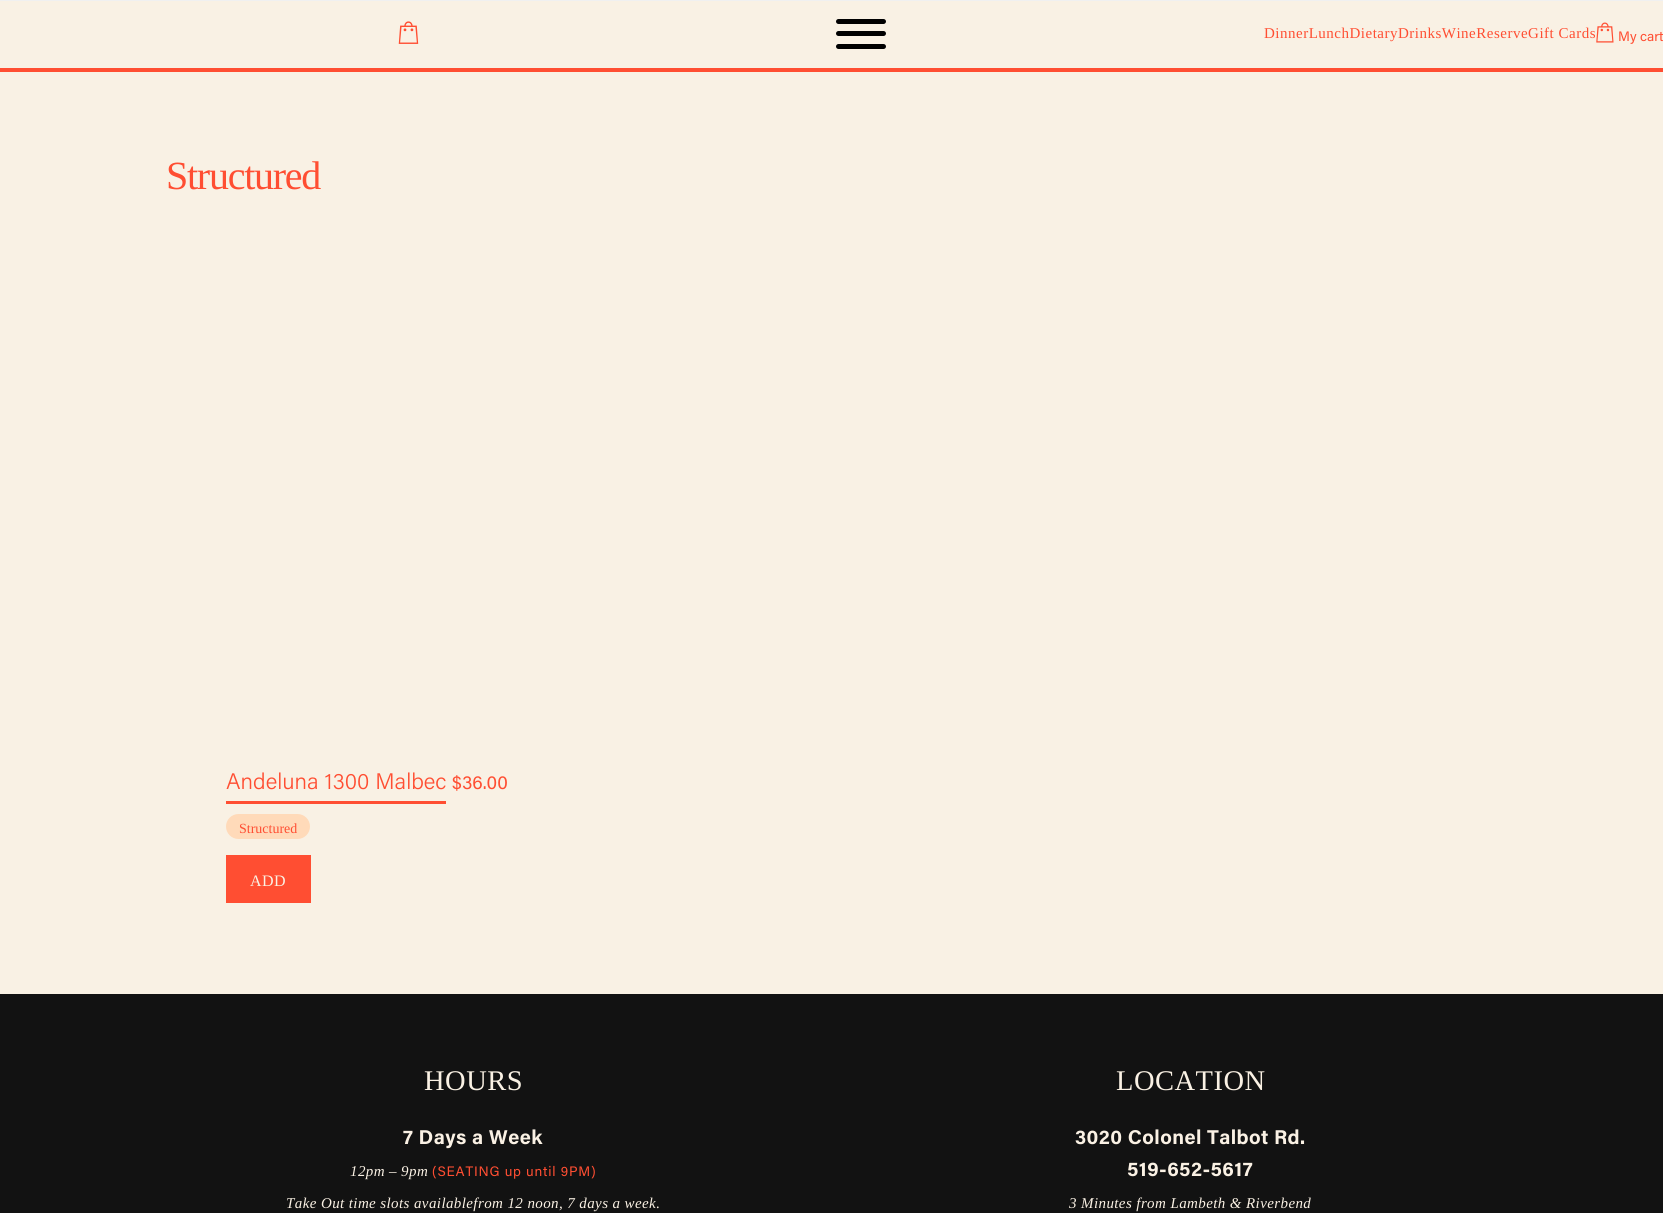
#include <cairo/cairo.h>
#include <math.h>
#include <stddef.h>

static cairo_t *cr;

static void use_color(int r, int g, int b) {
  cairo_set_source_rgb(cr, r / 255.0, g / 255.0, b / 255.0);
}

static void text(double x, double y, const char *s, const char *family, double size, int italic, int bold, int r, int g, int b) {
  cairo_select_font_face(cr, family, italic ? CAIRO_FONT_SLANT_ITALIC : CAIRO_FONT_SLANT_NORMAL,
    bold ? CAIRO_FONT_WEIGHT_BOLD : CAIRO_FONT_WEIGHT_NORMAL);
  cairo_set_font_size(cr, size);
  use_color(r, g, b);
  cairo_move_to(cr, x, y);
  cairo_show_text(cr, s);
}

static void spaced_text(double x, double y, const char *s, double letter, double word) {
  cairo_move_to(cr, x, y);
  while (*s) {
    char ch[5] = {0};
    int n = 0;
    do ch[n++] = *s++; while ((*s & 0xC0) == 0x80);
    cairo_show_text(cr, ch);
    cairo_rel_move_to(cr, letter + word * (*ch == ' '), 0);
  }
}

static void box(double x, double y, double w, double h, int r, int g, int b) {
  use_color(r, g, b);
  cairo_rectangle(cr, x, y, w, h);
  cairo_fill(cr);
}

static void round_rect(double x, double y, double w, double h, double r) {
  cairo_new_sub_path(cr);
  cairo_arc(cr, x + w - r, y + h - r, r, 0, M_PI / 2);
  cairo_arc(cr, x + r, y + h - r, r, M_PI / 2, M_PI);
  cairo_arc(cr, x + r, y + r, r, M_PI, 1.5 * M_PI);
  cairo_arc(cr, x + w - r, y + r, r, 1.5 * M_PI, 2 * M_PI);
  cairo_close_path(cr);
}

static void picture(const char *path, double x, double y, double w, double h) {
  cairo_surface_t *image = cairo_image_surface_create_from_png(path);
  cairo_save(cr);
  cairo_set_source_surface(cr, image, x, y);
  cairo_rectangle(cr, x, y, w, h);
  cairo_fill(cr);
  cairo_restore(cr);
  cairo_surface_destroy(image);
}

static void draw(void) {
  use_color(249, 241, 228);
  cairo_paint(cr);
  box(0, 68, 1663, 4, 255, 78, 50);
  picture("img_01.png", 398, 21, 21, 23);
  use_color(0, 0, 0);
  round_rect(836, 31, 50, 5, 2.5);
  cairo_fill(cr);
  round_rect(836, 19, 50, 5, 2.5);
  cairo_fill(cr);
  round_rect(836, 44, 50, 5, 2.5);
  cairo_fill(cr);
  picture("img_02.png", 1596, 22, 18, 21);
  box(0, 0, 1663, 1, 240, 240, 240);
  box(226, 801, 220, 3, 255, 78, 50);
  use_color(255, 218, 185);
  round_rect(226, 814, 84, 25, 12.5);
  cairo_fill(cr);
  box(226, 855, 85, 48, 255, 78, 50);
  box(0, 994, 1663, 219, 18, 18, 18);
  cairo_select_font_face(cr, "Liberation Serif", CAIRO_FONT_SLANT_NORMAL, CAIRO_FONT_WEIGHT_NORMAL);
  cairo_set_font_size(cr, 15);
  use_color(255, 78, 50);
  spaced_text(1264, 38, "DinnerLunchDietaryDrinksWineReserveGift Cards", 0.5, 0);
  text(1618, 41, "My cart", "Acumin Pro", 13.75, 0, 0, 255, 78, 50);
  cairo_select_font_face(cr, "Liberation Serif", CAIRO_FONT_SLANT_NORMAL, CAIRO_FONT_WEIGHT_NORMAL);
  cairo_set_font_size(cr, 40);
  spaced_text(166, 189, "Structured", -1.25, 0);
  text(226, 789, "Andeluna 1300 Malbec", "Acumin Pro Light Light", 22.5, 0, 0, 255, 78, 50);
  text(452, 789, "$36.00", "Acumin Pro", 19, 0, 0, 255, 78, 50);
  text(239, 833, "Structured", "Liberation Serif", 14, 0, 0, 255, 78, 50);
  cairo_set_font_size(cr, 16);
  use_color(250, 241, 228);
  spaced_text(250, 886, "ADD", 0.5, 0);
  cairo_set_font_size(cr, 28.5);
  spaced_text(424, 1090, "HOURS", 0.5, 0);
  cairo_select_font_face(cr, "Acumin Pro", CAIRO_FONT_SLANT_NORMAL, CAIRO_FONT_WEIGHT_BOLD);
  cairo_set_font_size(cr, 20);
  spaced_text(403, 1144, "7 Days a Week", 0.4, 0);
  cairo_select_font_face(cr, "Liberation Serif", CAIRO_FONT_SLANT_ITALIC, CAIRO_FONT_WEIGHT_NORMAL);
  cairo_set_font_size(cr, 15);
  spaced_text(350, 1176, "12pm – 9pm", 0.4, 0);
  cairo_select_font_face(cr, "Acumin Pro", CAIRO_FONT_SLANT_NORMAL, CAIRO_FONT_WEIGHT_NORMAL);
  cairo_set_font_size(cr, 13.75);
  use_color(255, 78, 50);
  spaced_text(432, 1176, "(SEATING up until 9PM)", 0.8, 0);
  cairo_select_font_face(cr, "Liberation Serif", CAIRO_FONT_SLANT_ITALIC, CAIRO_FONT_WEIGHT_NORMAL);
  cairo_set_font_size(cr, 15);
  use_color(250, 241, 228);
  spaced_text(286, 1208, "Take Out time slots availablefrom 12 noon, 7 days a week.", 0.4, 0);
  cairo_select_font_face(cr, "Liberation Serif", CAIRO_FONT_SLANT_NORMAL, CAIRO_FONT_WEIGHT_NORMAL);
  cairo_set_font_size(cr, 28.5);
  spaced_text(1116, 1090, "LOCATION", 0.5, 0);
  cairo_select_font_face(cr, "Acumin Pro", CAIRO_FONT_SLANT_NORMAL, CAIRO_FONT_WEIGHT_BOLD);
  cairo_set_font_size(cr, 20);
  spaced_text(1075, 1144, "3020 Colonel Talbot Rd.", 0.4, 0);
  spaced_text(1127, 1176, "519-652-5617", 0.4, 0);
  cairo_select_font_face(cr, "Liberation Serif", CAIRO_FONT_SLANT_ITALIC, CAIRO_FONT_WEIGHT_NORMAL);
  cairo_set_font_size(cr, 15);
  spaced_text(1069, 1208, "3 Minutes from Lambeth & Riverbend", 0.4, 0);
}

int main(void) {
  cairo_surface_t *surface = cairo_image_surface_create(CAIRO_FORMAT_RGB24, 1663, 1213);
  cr = cairo_create(surface);
  cairo_font_options_t *options = cairo_font_options_create();
  cairo_font_options_set_hint_metrics(options, CAIRO_HINT_METRICS_OFF);
  cairo_font_options_set_hint_style(options, CAIRO_HINT_STYLE_NONE);
  cairo_set_font_options(cr, options);
  cairo_set_miter_limit(cr, 4);
  draw();
  cairo_surface_write_to_png(surface, "out.png");
  cairo_font_options_destroy(options);
  cairo_destroy(cr);
  cairo_surface_destroy(surface);
  return 0;
}
